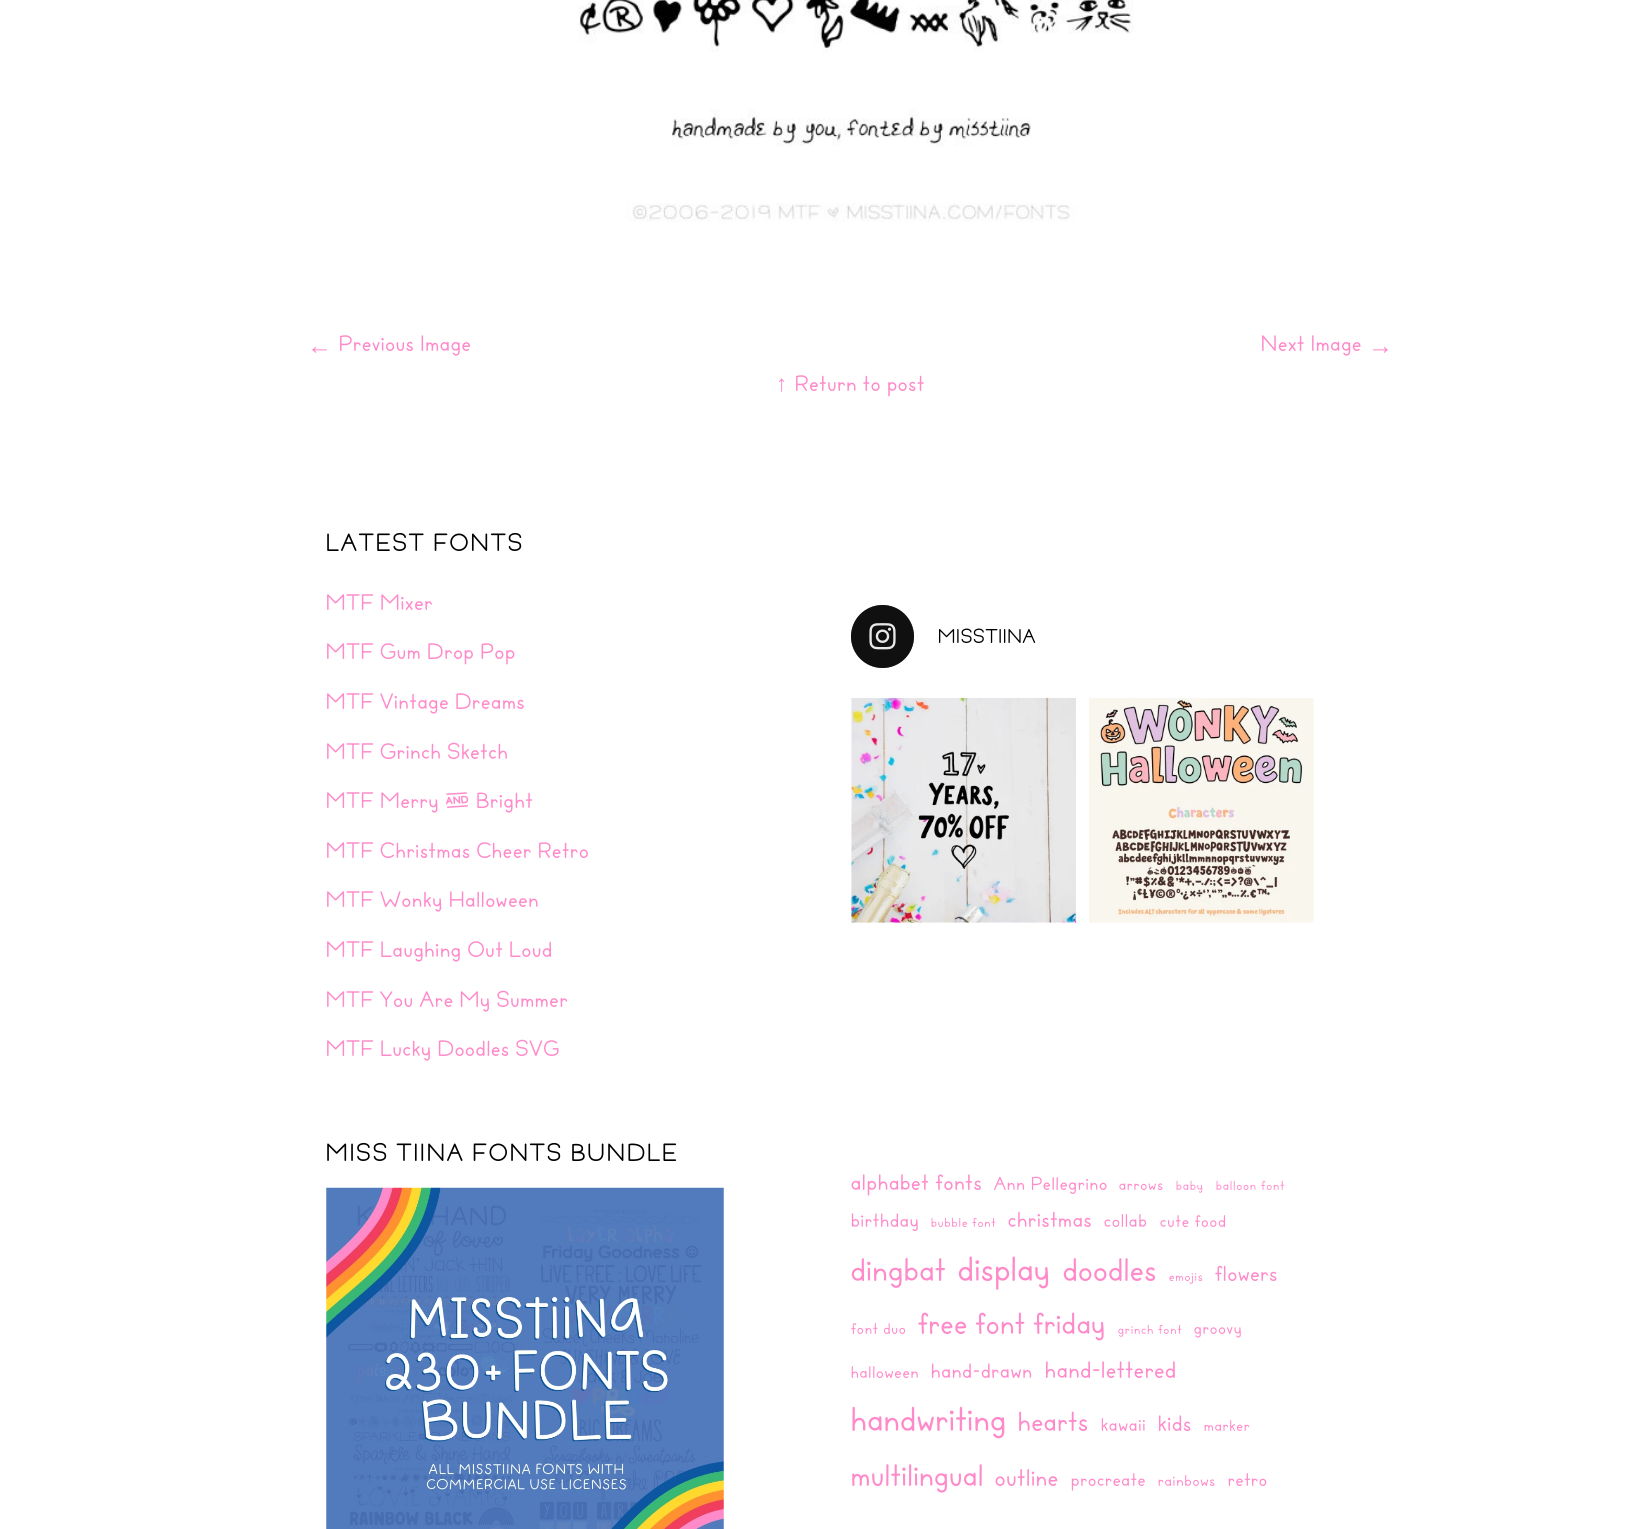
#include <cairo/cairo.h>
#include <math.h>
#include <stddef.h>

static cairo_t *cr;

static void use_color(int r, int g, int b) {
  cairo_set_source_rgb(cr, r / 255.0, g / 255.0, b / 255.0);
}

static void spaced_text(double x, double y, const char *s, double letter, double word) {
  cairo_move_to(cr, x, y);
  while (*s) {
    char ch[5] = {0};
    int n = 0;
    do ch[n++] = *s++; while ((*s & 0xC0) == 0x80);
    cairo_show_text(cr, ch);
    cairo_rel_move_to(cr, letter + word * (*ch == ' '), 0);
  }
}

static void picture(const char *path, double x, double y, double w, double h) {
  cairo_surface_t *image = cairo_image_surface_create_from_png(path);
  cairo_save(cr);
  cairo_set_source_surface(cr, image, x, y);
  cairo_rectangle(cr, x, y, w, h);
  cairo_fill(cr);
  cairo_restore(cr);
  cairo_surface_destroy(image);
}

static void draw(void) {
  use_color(255, 255, 255);
  cairo_paint(cr);
  picture("img_01.png", 578, 0, 556, 222);
  use_color(51, 51, 51);
  cairo_arc(cr, 882.5, 636.5, 31.5, 0, 2 * M_PI);
  cairo_fill(cr);
  cairo_set_source_rgba(cr, 0, 0, 0, 0.68);
  cairo_arc(cr, 882.5, 636.5, 31.5, 0, 2 * M_PI);
  cairo_fill(cr);
  picture("img_02.png", 869, 623, 27, 27);
  picture("img_03.png", 851, 697, 226, 226);
  picture("img_04.png", 1089, 698, 225, 225);
  picture("img_05.png", 326, 1187, 398, 342);
  cairo_select_font_face(cr, "Liberation Sans", CAIRO_FONT_SLANT_NORMAL, CAIRO_FONT_WEIGHT_NORMAL);
  cairo_set_font_size(cr, 25);
  use_color(255, 138, 202);
  spaced_text(307, 354, "←", 1.25, 0);
  cairo_select_font_face(cr, "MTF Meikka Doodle", CAIRO_FONT_SLANT_NORMAL, CAIRO_FONT_WEIGHT_NORMAL);
  cairo_set_font_size(cr, 22.5);
  spaced_text(339, 351, "Previous Image", 1.25, 0);
  spaced_text(1261, 351, "Next Image", 1.25, 0);
  cairo_select_font_face(cr, "Liberation Sans", CAIRO_FONT_SLANT_NORMAL, CAIRO_FONT_WEIGHT_NORMAL);
  cairo_set_font_size(cr, 25);
  spaced_text(1368, 354, "→", 1.25, 0);
  cairo_set_font_size(cr, 22.5);
  spaced_text(776, 391, "↑", 1.25, 0);
  cairo_select_font_face(cr, "MTF Meikka Doodle", CAIRO_FONT_SLANT_NORMAL, CAIRO_FONT_WEIGHT_NORMAL);
  spaced_text(795, 391, "Return to post", 1.25, 0);
  cairo_set_font_size(cr, 25);
  use_color(0, 0, 0);
  spaced_text(326, 551, "LATEST FONTS", 2.5, 0);
  cairo_set_font_size(cr, 22.5);
  use_color(255, 138, 202);
  spaced_text(326, 610, "MTF Mixer", 1.25, 0);
  spaced_text(326, 659, "MTF Gum Drop Pop", 1.25, 0);
  spaced_text(326, 709, "MTF Vintage Dreams", 1.25, 0);
  spaced_text(326, 759, "MTF Grinch Sketch", 1.25, 0);
  spaced_text(326, 808, "MTF Merry & Bright", 1.25, 0);
  spaced_text(326, 858, "MTF Christmas Cheer Retro", 1.25, 0);
  spaced_text(326, 907, "MTF Wonky Halloween", 1.25, 0);
  spaced_text(326, 957, "MTF Laughing Out Loud", 1.25, 0);
  spaced_text(326, 1007, "MTF You Are My Summer", 1.25, 0);
  spaced_text(326, 1056, "MTF Lucky Doodles SVG", 1.25, 0);
  cairo_set_font_size(cr, 20);
  use_color(0, 0, 0);
  spaced_text(938, 643, "MISSTIINA", 1.25, 0);
  cairo_set_font_size(cr, 25);
  spaced_text(326, 1161, "MISS TIINA FONTS BUNDLE", 2.5, 0);
  cairo_set_font_size(cr, 23);
  use_color(255, 138, 202);
  spaced_text(851, 1190, "alphabet fonts", 1.25, 0);
  cairo_set_font_size(cr, 19);
  spaced_text(994, 1190, "Ann Pellegrino", 1.25, 0);
  cairo_set_font_size(cr, 16);
  spaced_text(1119, 1190, "arrows", 1.25, 0);
  cairo_set_font_size(cr, 13.5);
  spaced_text(1176, 1190, "baby", 1.25, 0);
  spaced_text(1216, 1190, "balloon font", 1.25, 0);
  cairo_set_font_size(cr, 20);
  spaced_text(851, 1227, "birthday", 1.25, 0);
  cairo_set_font_size(cr, 13.5);
  spaced_text(931, 1227, "bubble font", 1.25, 0);
  cairo_set_font_size(cr, 22.5);
  spaced_text(1008, 1227, "christmas", 1.25, 0);
  cairo_set_font_size(cr, 19);
  spaced_text(1104, 1227, "collab", 1.25, 0);
  cairo_set_font_size(cr, 17.5);
  spaced_text(1160, 1227, "cute food", 1.25, 0);
  cairo_set_font_size(cr, 33.5);
  spaced_text(851, 1281, "dingbat", 1.25, 0);
  cairo_set_font_size(cr, 36);
  spaced_text(958, 1281, "display", 1.25, 0);
  cairo_set_font_size(cr, 33.5);
  spaced_text(1063, 1281, "doodles", 1.25, 0);
  cairo_set_font_size(cr, 13.5);
  spaced_text(1169, 1281, "emojis", 1.25, 0);
  cairo_set_font_size(cr, 22.5);
  spaced_text(1215, 1281, "flowers", 1.25, 0);
  cairo_set_font_size(cr, 16);
  spaced_text(851, 1334, "font duo", 1.25, 0);
  cairo_set_font_size(cr, 31.5);
  spaced_text(918, 1334, "free font friday", 1.25, 0);
  cairo_set_font_size(cr, 13.5);
  spaced_text(1118, 1334, "grinch font", 1.25, 0);
  cairo_set_font_size(cr, 17.5);
  spaced_text(1194, 1334, "groovy", 1.25, 0);
  spaced_text(851, 1378, "halloween", 1.25, 0);
  cairo_set_font_size(cr, 21.5);
  spaced_text(931, 1378, "hand-drawn", 1.25, 0);
  cairo_set_font_size(cr, 24.5);
  spaced_text(1045, 1378, "hand-lettered", 1.25, 0);
  cairo_set_font_size(cr, 35.5);
  spaced_text(851, 1431, "handwriting", 1.25, 0);
  cairo_set_font_size(cr, 28.5);
  spaced_text(1018, 1431, "hearts", 1.25, 0);
  cairo_set_font_size(cr, 19);
  spaced_text(1101, 1431, "kawaii", 1.25, 0);
  cairo_set_font_size(cr, 23);
  spaced_text(1158, 1431, "kids", 1.25, 0);
  cairo_set_font_size(cr, 16);
  spaced_text(1204, 1431, "marker", 1.25, 0);
  cairo_set_font_size(cr, 32);
  spaced_text(851, 1486, "multilingual", 1.25, 0);
  cairo_set_font_size(cr, 25);
  spaced_text(995, 1486, "outline", 1.25, 0);
  cairo_set_font_size(cr, 19);
  spaced_text(1071, 1486, "procreate", 1.25, 0);
  cairo_set_font_size(cr, 16);
  spaced_text(1158, 1486, "rainbows", 1.25, 0);
  cairo_set_font_size(cr, 19);
  spaced_text(1228, 1486, "retro", 1.25, 0);
}

int main(void) {
  cairo_surface_t *surface = cairo_image_surface_create(CAIRO_FORMAT_RGB24, 1638, 1529);
  cr = cairo_create(surface);
  cairo_font_options_t *options = cairo_font_options_create();
  cairo_font_options_set_hint_metrics(options, CAIRO_HINT_METRICS_OFF);
  cairo_font_options_set_hint_style(options, CAIRO_HINT_STYLE_NONE);
  cairo_set_font_options(cr, options);
  cairo_set_miter_limit(cr, 4);
  draw();
  cairo_surface_write_to_png(surface, "out.png");
  cairo_font_options_destroy(options);
  cairo_destroy(cr);
  cairo_surface_destroy(surface);
  return 0;
}
